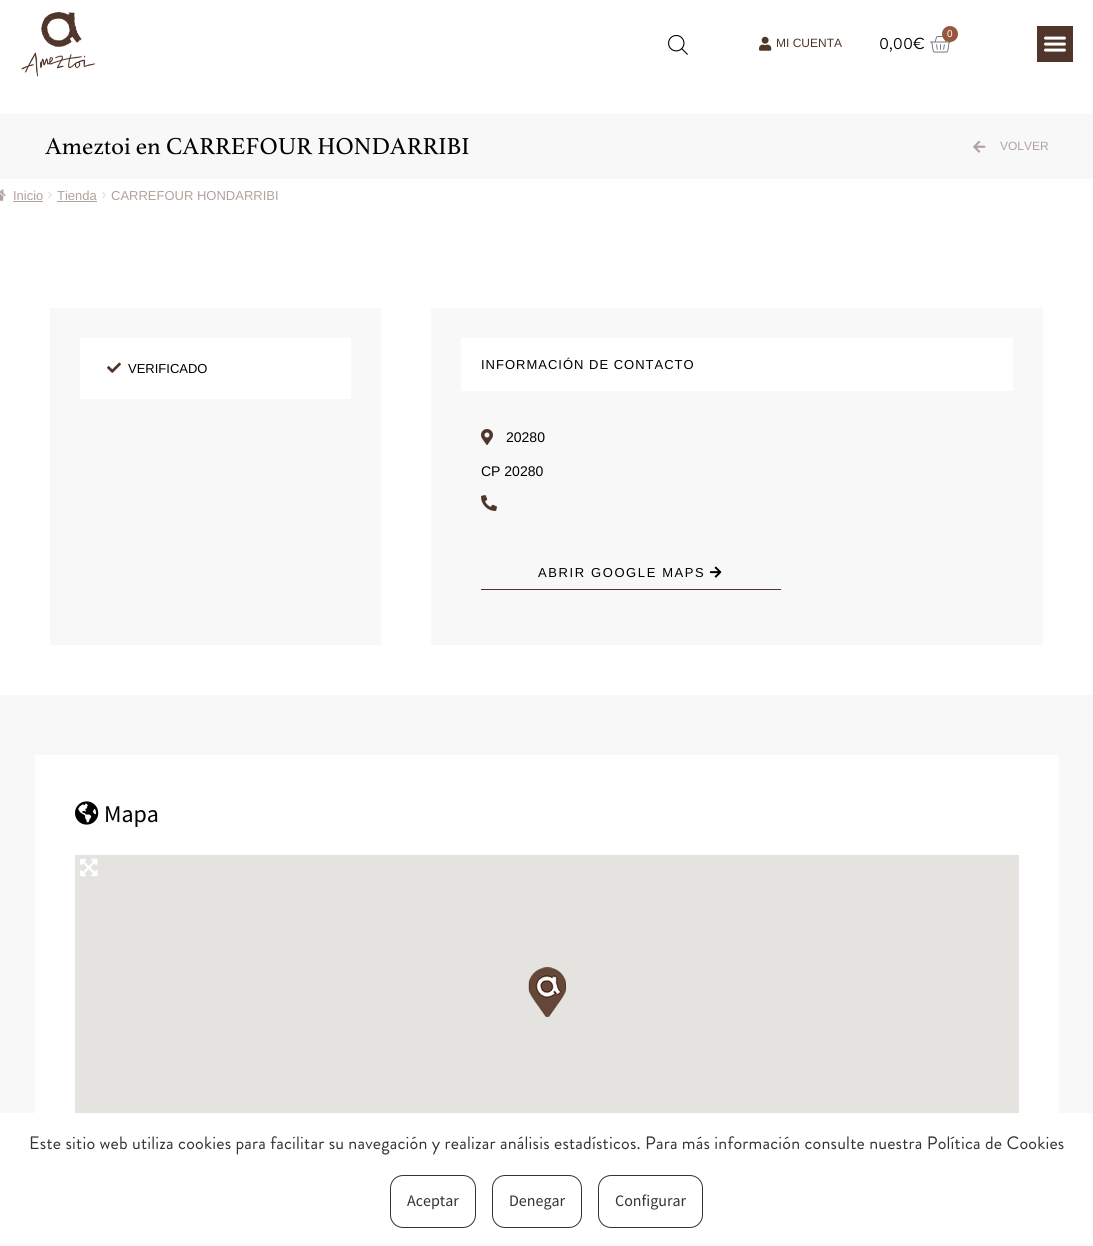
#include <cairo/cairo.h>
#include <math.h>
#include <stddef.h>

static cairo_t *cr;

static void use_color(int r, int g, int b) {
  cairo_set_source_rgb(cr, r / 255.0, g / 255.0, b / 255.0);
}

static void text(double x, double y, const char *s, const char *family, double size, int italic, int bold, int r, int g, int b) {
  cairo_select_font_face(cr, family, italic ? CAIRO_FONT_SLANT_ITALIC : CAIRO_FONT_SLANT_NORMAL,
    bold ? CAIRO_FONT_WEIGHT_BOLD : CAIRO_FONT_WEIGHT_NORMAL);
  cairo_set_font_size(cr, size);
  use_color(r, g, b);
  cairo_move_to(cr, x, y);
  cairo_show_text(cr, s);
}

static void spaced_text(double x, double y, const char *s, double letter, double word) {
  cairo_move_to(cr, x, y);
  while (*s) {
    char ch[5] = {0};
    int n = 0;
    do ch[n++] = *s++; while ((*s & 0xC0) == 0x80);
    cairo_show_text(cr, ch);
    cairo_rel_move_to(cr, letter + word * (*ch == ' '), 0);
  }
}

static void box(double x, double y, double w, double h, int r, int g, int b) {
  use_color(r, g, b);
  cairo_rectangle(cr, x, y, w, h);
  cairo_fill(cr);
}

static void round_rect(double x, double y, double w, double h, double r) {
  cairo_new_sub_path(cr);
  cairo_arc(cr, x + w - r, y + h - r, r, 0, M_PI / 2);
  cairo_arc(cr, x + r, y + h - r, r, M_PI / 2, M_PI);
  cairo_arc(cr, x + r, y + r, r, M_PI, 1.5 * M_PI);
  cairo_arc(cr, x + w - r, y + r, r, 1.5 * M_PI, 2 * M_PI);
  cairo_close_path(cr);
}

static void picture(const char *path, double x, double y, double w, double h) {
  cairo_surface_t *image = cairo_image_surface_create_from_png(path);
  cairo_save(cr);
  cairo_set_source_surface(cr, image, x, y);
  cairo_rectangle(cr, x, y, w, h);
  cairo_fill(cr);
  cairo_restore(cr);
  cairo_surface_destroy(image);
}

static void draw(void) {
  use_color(255, 255, 255);
  cairo_paint(cr);
  picture("img_01.png", 21, 11, 75, 66);
  picture("img_02.png", 668, 35, 20, 20);
  picture("img_03.png", 759, 36, 13, 15);
  picture("img_04.png", 930, 36, 21, 17);
  use_color(152, 87, 60);
  cairo_arc(cr, 950, 34, 8, 0, 2 * M_PI);
  cairo_fill(cr);
  box(1037, 26, 36, 36, 80, 54, 42);
  picture("img_05.png", 1044, 36, 22, 16);
  box(0, 114, 1093, 65, 248, 248, 248);
  picture("img_06.png", 973, 140, 13, 13);
  picture("img_07.png", 0, 189, 6, 12);
  box(13, 201, 30, 1, 176, 163, 157);
  picture("img_08.png", 48, 191, 5, 8);
  box(57, 201, 40, 1, 176, 163, 157);
  picture("img_08.png", 102, 191, 5, 8);
  box(50, 308, 331, 337, 248, 248, 248);
  box(80, 338, 271, 61, 255, 255, 255);
  picture("img_09.png", 107, 362, 14, 11);
  box(431, 308, 612, 337, 248, 248, 248);
  box(461, 338, 552, 53, 255, 255, 255);
  picture("img_10.png", 481, 429, 12, 16);
  picture("img_11.png", 481, 495, 16, 16);
  box(481, 589, 300, 1, 80, 54, 42);
  picture("img_12.png", 710, 566, 12, 12);
  box(0, 695, 1093, 418, 248, 248, 248);
  box(35, 755, 1024, 358, 255, 255, 255);
  picture("img_13.png", 75, 801, 24, 24);
  box(75, 855, 944, 258, 229, 227, 223);
  picture("img_14.png", 528, 967, 39, 50);
  picture("img_15.png", 80, 858, 18, 19);
  round_rect(390.5, 1175.5, 85, 52, 12.5);
  use_color(51, 51, 51);
  cairo_set_line_width(cr, 1);
  cairo_stroke(cr);
  round_rect(492.5, 1175.5, 89, 52, 12.5);
  cairo_stroke(cr);
  round_rect(598.5, 1175.5, 104, 52, 12.5);
  cairo_stroke(cr);
  text(776, 47, "MI CUENTA", "Liberation Sans", 12, 0, 0, 80, 54, 42);
  text(947, 37, "0", "Liberation Sans", 10, 0, 0, 255, 255, 255);
  text(879, 49, "0,00€", "Brandon Grotesque", 16, 0, 0, 0, 0, 0);
  text(45, 154, "Ameztoi en CARREFOUR HONDARRIBI", "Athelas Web", 25, 0, 0, 0, 0, 0);
  text(1000, 150, "VOLVER", "Liberation Sans", 12, 0, 0, 176, 163, 157);
  text(13, 200, "Inicio", "Liberation Sans", 13, 0, 0, 176, 163, 157);
  text(57, 200, "Tienda", "Liberation Sans", 13, 0, 0, 176, 163, 157);
  text(111, 200, "CARREFOUR HONDARRIBI", "Liberation Sans", 13, 0, 0, 176, 163, 157);
  text(128, 373, "VERIFICADO", "Liberation Sans", 13, 0, 0, 0, 0, 0);
  spaced_text(481, 369, "INFORMACIÓN DE CONTACTO", 1, 0);
  text(506, 442, "20280", "Liberation Sans", 14, 0, 0, 0, 0, 0);
  text(481, 476, "CP 20280", "Liberation Sans", 14, 0, 0, 0, 0, 0);
  cairo_set_font_size(cr, 13);
  spaced_text(538, 577, "ABRIR GOOGLE MAPS", 1.6, 0);
  text(104, 822, "Mapa", "Source Sans Pro", 24, 0, 0, 0, 0, 0);
  cairo_select_font_face(cr, "Brandon Grotesque", CAIRO_FONT_SLANT_NORMAL, CAIRO_FONT_WEIGHT_NORMAL);
  cairo_set_font_size(cr, 18);
  use_color(51, 51, 51);
  spaced_text(29, 1149, "Este sitio web utiliza cookies para facilitar su navegación y realizar análisis estadísticos. Para más información consulte nuestra Política de Cookies", 0.2, 0);
  text(407, 1206, "Aceptar", "Source Sans Pro", 16, 0, 0, 51, 51, 51);
  text(509, 1206, "Denegar", "Source Sans Pro", 16, 0, 0, 51, 51, 51);
  text(615, 1206, "Configurar", "Source Sans Pro", 16, 0, 0, 51, 51, 51);
}

int main(void) {
  cairo_surface_t *surface = cairo_image_surface_create(CAIRO_FORMAT_RGB24, 1093, 1246);
  cr = cairo_create(surface);
  cairo_font_options_t *options = cairo_font_options_create();
  cairo_font_options_set_hint_metrics(options, CAIRO_HINT_METRICS_OFF);
  cairo_font_options_set_hint_style(options, CAIRO_HINT_STYLE_NONE);
  cairo_set_font_options(cr, options);
  cairo_set_miter_limit(cr, 4);
  draw();
  cairo_surface_write_to_png(surface, "out.png");
  cairo_font_options_destroy(options);
  cairo_destroy(cr);
  cairo_surface_destroy(surface);
  return 0;
}
